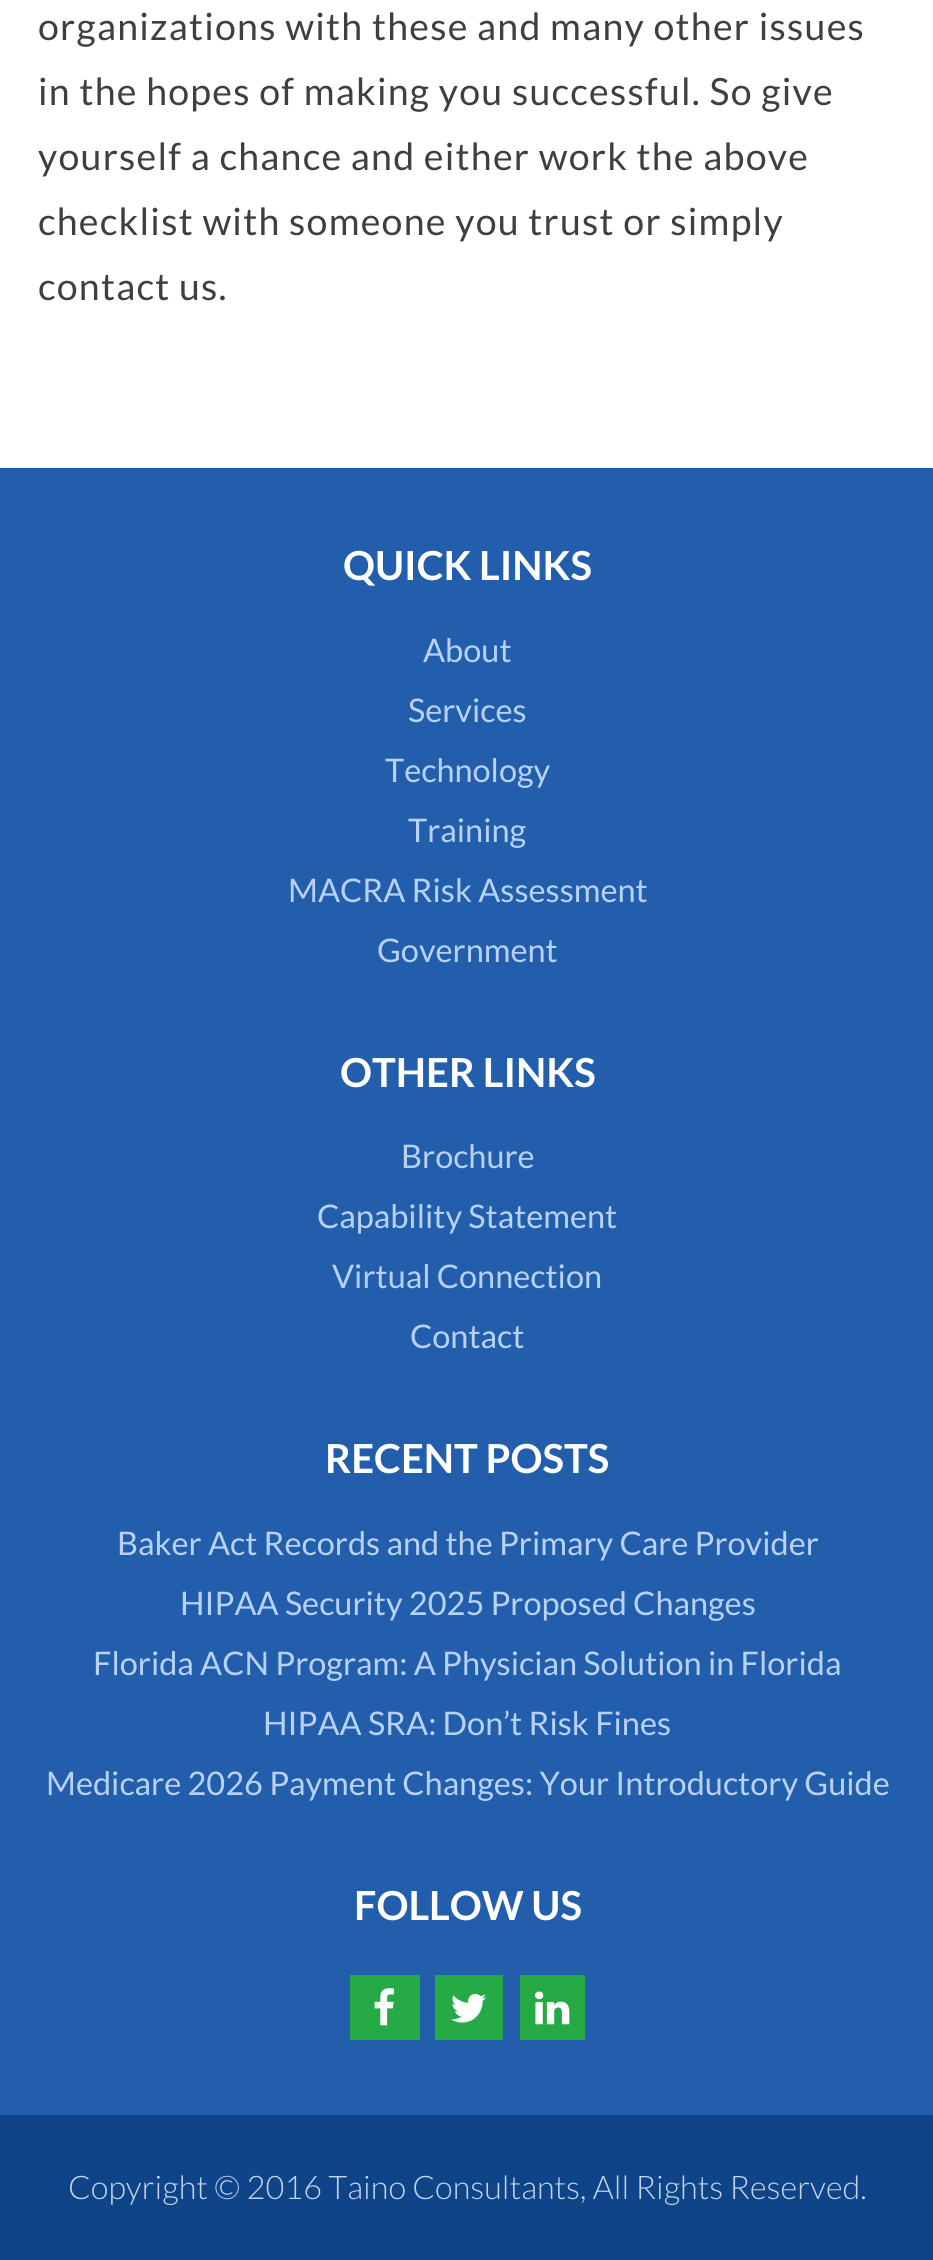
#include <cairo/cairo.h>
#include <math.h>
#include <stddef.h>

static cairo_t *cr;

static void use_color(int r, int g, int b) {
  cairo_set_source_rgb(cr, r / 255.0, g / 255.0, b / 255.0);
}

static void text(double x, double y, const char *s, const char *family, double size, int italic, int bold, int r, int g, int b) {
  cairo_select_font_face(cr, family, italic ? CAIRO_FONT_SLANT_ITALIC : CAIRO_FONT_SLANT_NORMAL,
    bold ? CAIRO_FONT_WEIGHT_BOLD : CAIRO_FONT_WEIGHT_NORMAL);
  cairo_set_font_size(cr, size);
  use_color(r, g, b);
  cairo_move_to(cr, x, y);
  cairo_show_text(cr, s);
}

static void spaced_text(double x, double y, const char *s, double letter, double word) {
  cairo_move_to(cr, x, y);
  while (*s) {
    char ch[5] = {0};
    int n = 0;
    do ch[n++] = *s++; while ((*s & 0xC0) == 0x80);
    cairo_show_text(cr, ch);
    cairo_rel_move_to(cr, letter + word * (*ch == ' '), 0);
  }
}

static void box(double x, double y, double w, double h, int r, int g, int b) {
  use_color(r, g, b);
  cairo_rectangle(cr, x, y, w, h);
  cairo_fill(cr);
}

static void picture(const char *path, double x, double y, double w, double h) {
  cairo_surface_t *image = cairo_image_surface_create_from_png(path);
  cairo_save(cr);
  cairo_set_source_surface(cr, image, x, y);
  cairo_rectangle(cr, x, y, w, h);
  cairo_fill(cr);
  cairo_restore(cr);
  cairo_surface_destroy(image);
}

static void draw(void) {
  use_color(255, 255, 255);
  cairo_paint(cr);
  box(0, 468, 933, 1647, 34, 94, 172);
  box(350, 1975, 70, 65, 38, 170, 69);
  picture("img_01.png", 374, 1988, 20, 38);
  box(435, 1975, 68, 65, 38, 170, 69);
  picture("img_02.png", 451, 1993, 35, 30);
  box(520, 1975, 65, 65, 38, 170, 69);
  picture("img_03.png", 535, 1991, 35, 34);
  box(0, 2115, 933, 145, 15, 68, 137);
  cairo_select_font_face(cr, "Lato", CAIRO_FONT_SLANT_NORMAL, CAIRO_FONT_WEIGHT_NORMAL);
  cairo_set_font_size(cr, 37.5);
  use_color(64, 63, 63);
  spaced_text(38, 40, "organizations with these and many other issues", 1.25, 0);
  spaced_text(38, 105, "in the hopes of making you successful. So give", 1.25, 0);
  spaced_text(38, 170, "yourself a chance and either work the above", 1.25, 0);
  spaced_text(38, 235, "checklist with someone you trust or simply", 1.25, 0);
  spaced_text(38, 300, "contact us.", 1.25, 0);
  text(343, 580, "QUICK LINKS", "Lato", 40, 0, 1, 255, 255, 255);
  text(423, 662, "About", "Lato", 32.5, 0, 0, 183, 210, 245);
  text(408, 722, "Services", "Lato", 32.5, 0, 0, 183, 210, 245);
  text(385, 782, "Technology", "Lato", 32.5, 0, 0, 183, 210, 245);
  text(408, 842, "Training", "Lato", 32.5, 0, 0, 183, 210, 245);
  text(288, 902, "MACRA Risk Assessment", "Lato", 32.5, 0, 0, 183, 210, 245);
  text(377, 962, "Government", "Lato", 32.5, 0, 0, 183, 210, 245);
  text(340, 1087, "OTHER LINKS", "Lato", 40, 0, 1, 255, 255, 255);
  text(401, 1168, "Brochure", "Lato", 32.5, 0, 0, 183, 210, 245);
  text(317, 1228, "Capability Statement", "Lato", 32.5, 0, 0, 183, 210, 245);
  text(332, 1288, "Virtual Connection", "Lato", 32.5, 0, 0, 183, 210, 245);
  text(410, 1348, "Contact", "Lato", 32.5, 0, 0, 183, 210, 245);
  text(325, 1473, "RECENT POSTS", "Lato", 40, 0, 1, 255, 255, 255);
  text(117, 1555, "Baker Act Records and the Primary Care Provider", "Lato", 32.5, 0, 0, 183, 210, 245);
  text(180, 1615, "HIPAA Security 2025 Proposed Changes", "Lato", 32.5, 0, 0, 183, 210, 245);
  text(93, 1675, "Florida ACN Program: A Physician Solution in Florida", "Lato", 32.5, 0, 0, 183, 210, 245);
  text(263, 1735, "HIPAA SRA: Don’t Risk Fines", "Lato", 32.5, 0, 0, 183, 210, 245);
  text(46, 1795, "Medicare 2026 Payment Changes: Your Introductory Guide", "Lato", 32.5, 0, 0, 183, 210, 245);
  text(354, 1920, "FOLLOW US", "Lato", 40, 0, 1, 255, 255, 255);
  text(68, 2199, "Copyright © 2016 Taino Consultants, All Rights Reserved.", "Lato Light", 32.5, 0, 0, 195, 214, 234);
}

int main(void) {
  cairo_surface_t *surface = cairo_image_surface_create(CAIRO_FORMAT_RGB24, 933, 2260);
  cr = cairo_create(surface);
  cairo_font_options_t *options = cairo_font_options_create();
  cairo_font_options_set_hint_metrics(options, CAIRO_HINT_METRICS_OFF);
  cairo_font_options_set_hint_style(options, CAIRO_HINT_STYLE_NONE);
  cairo_set_font_options(cr, options);
  cairo_set_miter_limit(cr, 4);
  draw();
  cairo_surface_write_to_png(surface, "out.png");
  cairo_font_options_destroy(options);
  cairo_destroy(cr);
  cairo_surface_destroy(surface);
  return 0;
}
